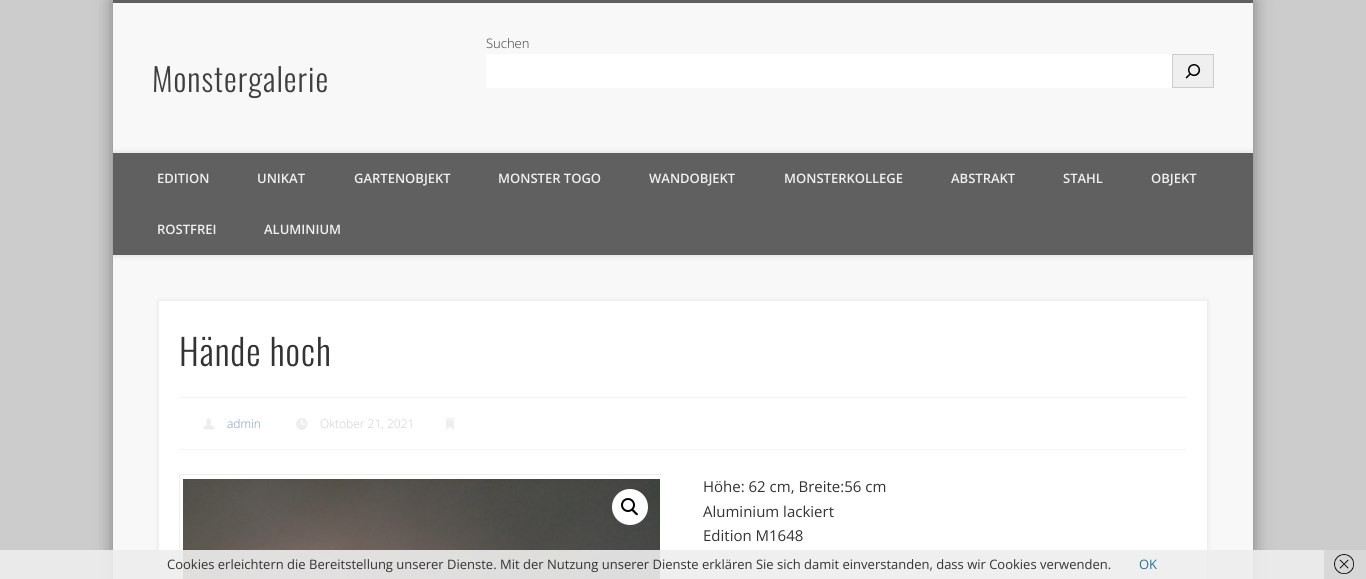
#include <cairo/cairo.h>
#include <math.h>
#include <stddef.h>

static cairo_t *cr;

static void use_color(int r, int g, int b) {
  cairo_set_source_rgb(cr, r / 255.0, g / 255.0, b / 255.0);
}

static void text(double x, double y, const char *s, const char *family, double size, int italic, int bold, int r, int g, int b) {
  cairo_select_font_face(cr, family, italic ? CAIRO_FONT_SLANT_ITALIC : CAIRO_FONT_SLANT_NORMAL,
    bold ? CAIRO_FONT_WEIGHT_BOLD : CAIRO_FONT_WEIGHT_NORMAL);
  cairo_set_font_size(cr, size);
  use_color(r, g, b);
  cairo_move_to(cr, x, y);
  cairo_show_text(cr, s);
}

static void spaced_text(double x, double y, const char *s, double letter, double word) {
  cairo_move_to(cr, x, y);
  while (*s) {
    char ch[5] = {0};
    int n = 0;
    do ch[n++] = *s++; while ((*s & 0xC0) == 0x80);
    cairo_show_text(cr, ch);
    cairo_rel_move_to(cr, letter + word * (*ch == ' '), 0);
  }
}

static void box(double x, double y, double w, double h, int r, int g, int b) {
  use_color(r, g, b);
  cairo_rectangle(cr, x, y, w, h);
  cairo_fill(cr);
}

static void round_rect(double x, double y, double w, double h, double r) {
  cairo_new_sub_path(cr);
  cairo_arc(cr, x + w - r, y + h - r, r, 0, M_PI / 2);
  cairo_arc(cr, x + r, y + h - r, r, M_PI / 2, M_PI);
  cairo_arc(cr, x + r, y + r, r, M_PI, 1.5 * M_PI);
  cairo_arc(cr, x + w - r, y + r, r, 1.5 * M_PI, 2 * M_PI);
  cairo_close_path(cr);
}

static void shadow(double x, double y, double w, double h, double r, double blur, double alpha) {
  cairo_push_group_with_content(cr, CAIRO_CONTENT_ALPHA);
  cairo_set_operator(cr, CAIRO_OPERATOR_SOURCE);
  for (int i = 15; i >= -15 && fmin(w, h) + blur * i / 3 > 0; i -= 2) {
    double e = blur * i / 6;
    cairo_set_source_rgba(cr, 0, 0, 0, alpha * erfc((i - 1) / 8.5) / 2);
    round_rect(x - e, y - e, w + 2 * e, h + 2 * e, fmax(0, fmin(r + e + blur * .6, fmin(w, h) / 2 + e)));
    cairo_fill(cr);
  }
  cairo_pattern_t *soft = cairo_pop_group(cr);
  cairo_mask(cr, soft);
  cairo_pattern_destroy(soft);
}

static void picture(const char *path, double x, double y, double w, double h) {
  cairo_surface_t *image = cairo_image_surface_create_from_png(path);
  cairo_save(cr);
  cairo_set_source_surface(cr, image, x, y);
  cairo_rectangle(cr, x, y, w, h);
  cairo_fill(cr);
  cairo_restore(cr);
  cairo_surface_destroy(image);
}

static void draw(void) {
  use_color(204, 204, 204);
  cairo_paint(cr);
  use_color(0, 0, 0);
  shadow(113, 0, 1140, 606, 0, 9, 0.4);
  box(113, 3, 1140, 576, 248, 248, 248);
  box(113, 0, 1140, 3, 96, 96, 96);
  box(486, 54, 686, 34, 255, 255, 255);
  use_color(239, 239, 239);
  cairo_rectangle(cr, 1172.5, 54.5, 41, 33);
  cairo_fill_preserve(cr);
  use_color(204, 204, 204);
  cairo_set_line_width(cr, 1);
  cairo_stroke(cr);
  picture("img_01.png", 1185, 64, 16, 15);
  cairo_save(cr);
  cairo_rectangle(cr, 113, 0, 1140, 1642);
  cairo_clip(cr);
  use_color(0, 0, 0);
  shadow(113, 153, 1140, 102, 0, 3.5, 0.1);
  cairo_restore(cr);
  box(113, 153, 1140, 102, 96, 96, 96);
  use_color(0, 0, 0);
  shadow(159, 301, 1048, 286, 0, 2.5, 0.1);
  box(159, 301, 1048, 278, 255, 255, 255);
  box(179, 397, 1008, 1, 244, 244, 244);
  box(179, 449, 1008, 1, 244, 244, 244);
  picture("img_02.png", 203, 418, 12, 12);
  picture("img_03.png", 296, 418, 12, 12);
  picture("img_04.png", 446, 418, 8, 12);
  cairo_save(cr);
  cairo_rectangle(cr, 179, 474, 484, 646);
  cairo_clip(cr);
  cairo_rectangle(cr, 179.5, 474.5, 485, 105);
  use_color(238, 238, 238);
  cairo_stroke(cr);
  cairo_restore(cr);
  picture("img_05.png", 183, 479, 477, 100);
  use_color(255, 255, 255);
  cairo_arc(cr, 630, 507, 18, 0, 2 * M_PI);
  cairo_fill(cr);
  cairo_arc(cr, 628, 505, 6, 0, 2 * M_PI);
  use_color(0, 0, 0);
  cairo_set_line_width(cr, 2);
  cairo_stroke(cr);
  cairo_new_path(cr);
  cairo_move_to(cr, 632, 509.5);
  cairo_curve_to(cr, 633, 508, 635, 511, 635.5, 511.5);
  cairo_curve_to(cr, 636, 512, 639, 514, 637.5, 515);
  cairo_curve_to(cr, 636.5, 516, 634.5, 513.5, 634, 513);
  cairo_curve_to(cr, 633.5, 512.5, 631, 510.5, 632, 509.5);
  cairo_close_path(cr);
  cairo_fill(cr);
  cairo_set_source_rgba(cr, 0.933, 0.933, 0.933, 0.9);
  cairo_rectangle(cr, 0, 550, 1324, 29);
  cairo_fill(cr);
  box(1324, 550, 42, 29, 216, 216, 216);
  picture("img_06.png", 1334, 554, 20, 20);
  text(486, 48, "Suchen", "Open Sans Light", 13, 0, 0, 51, 51, 51);
  cairo_select_font_face(cr, "Oswald Light", CAIRO_FONT_SLANT_NORMAL, CAIRO_FONT_WEIGHT_NORMAL);
  cairo_set_font_size(cr, 32);
  use_color(63, 63, 63);
  spaced_text(152, 92, "Monstergalerie", 1, 0);
  text(157, 183, "EDITION", "Open Sans SemiBold", 13, 0, 0, 240, 240, 240);
  text(257, 183, "UNIKAT", "Open Sans SemiBold", 13, 0, 0, 240, 240, 240);
  text(354, 183, "GARTENOBJEKT", "Open Sans SemiBold", 13, 0, 0, 240, 240, 240);
  text(498, 183, "MONSTER TOGO", "Open Sans SemiBold", 13, 0, 0, 240, 240, 240);
  text(649, 183, "WANDOBJEKT", "Open Sans SemiBold", 13, 0, 0, 240, 240, 240);
  text(784, 183, "MONSTERKOLLEGE", "Open Sans SemiBold", 13, 0, 0, 240, 240, 240);
  text(951, 183, "ABSTRAKT", "Open Sans SemiBold", 13, 0, 0, 240, 240, 240);
  text(1063, 183, "STAHL", "Open Sans SemiBold", 13, 0, 0, 240, 240, 240);
  text(1151, 183, "OBJEKT", "Open Sans SemiBold", 13, 0, 0, 240, 240, 240);
  text(157, 234, "ROSTFREI", "Open Sans SemiBold", 13, 0, 0, 240, 240, 240);
  text(264, 234, "ALUMINIUM", "Open Sans SemiBold", 13, 0, 0, 240, 240, 240);
  cairo_select_font_face(cr, "Oswald Light", CAIRO_FONT_SLANT_NORMAL, CAIRO_FONT_WEIGHT_NORMAL);
  cairo_set_font_size(cr, 36);
  use_color(51, 51, 51);
  spaced_text(179, 366, "Hände hoch", 1, 0);
  text(227, 428, "admin", "Open Sans Light", 12, 0, 0, 117, 151, 185);
  text(320, 428, "Oktober 21, 2021", "Open Sans Light", 12, 0, 0, 204, 204, 204);
  text(703, 492, "Höhe: 62 cm, Breite:56 cm", "Open Sans", 15, 0, 0, 51, 51, 51);
  text(703, 517, "Aluminium lackiert", "Open Sans", 15, 0, 0, 51, 51, 51);
  text(703, 541, "Edition M1648", "Open Sans", 15, 0, 0, 51, 51, 51);
  text(167, 569, "Cookies erleichtern die Bereitstellung unserer Dienste. Mit der Nutzung unserer Dienste erklären Sie sich damit einverstanden, dass wir Cookies verwenden.", "Open Sans", 13, 0, 0, 51, 51, 51);
  text(1139, 569, "OK", "Open Sans", 13, 0, 0, 33, 117, 155);
}

int main(void) {
  cairo_surface_t *surface = cairo_image_surface_create(CAIRO_FORMAT_RGB24, 1366, 579);
  cr = cairo_create(surface);
  cairo_font_options_t *options = cairo_font_options_create();
  cairo_font_options_set_hint_metrics(options, CAIRO_HINT_METRICS_OFF);
  cairo_font_options_set_hint_style(options, CAIRO_HINT_STYLE_NONE);
  cairo_set_font_options(cr, options);
  cairo_set_miter_limit(cr, 4);
  draw();
  cairo_surface_write_to_png(surface, "out.png");
  cairo_font_options_destroy(options);
  cairo_destroy(cr);
  cairo_surface_destroy(surface);
  return 0;
}
